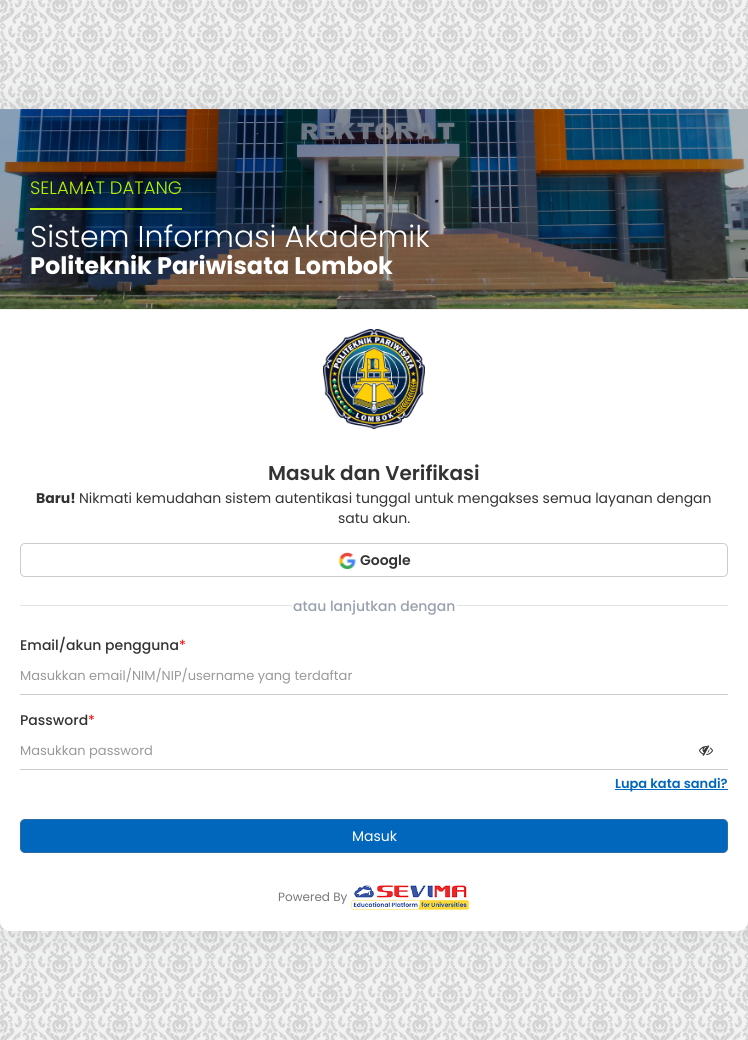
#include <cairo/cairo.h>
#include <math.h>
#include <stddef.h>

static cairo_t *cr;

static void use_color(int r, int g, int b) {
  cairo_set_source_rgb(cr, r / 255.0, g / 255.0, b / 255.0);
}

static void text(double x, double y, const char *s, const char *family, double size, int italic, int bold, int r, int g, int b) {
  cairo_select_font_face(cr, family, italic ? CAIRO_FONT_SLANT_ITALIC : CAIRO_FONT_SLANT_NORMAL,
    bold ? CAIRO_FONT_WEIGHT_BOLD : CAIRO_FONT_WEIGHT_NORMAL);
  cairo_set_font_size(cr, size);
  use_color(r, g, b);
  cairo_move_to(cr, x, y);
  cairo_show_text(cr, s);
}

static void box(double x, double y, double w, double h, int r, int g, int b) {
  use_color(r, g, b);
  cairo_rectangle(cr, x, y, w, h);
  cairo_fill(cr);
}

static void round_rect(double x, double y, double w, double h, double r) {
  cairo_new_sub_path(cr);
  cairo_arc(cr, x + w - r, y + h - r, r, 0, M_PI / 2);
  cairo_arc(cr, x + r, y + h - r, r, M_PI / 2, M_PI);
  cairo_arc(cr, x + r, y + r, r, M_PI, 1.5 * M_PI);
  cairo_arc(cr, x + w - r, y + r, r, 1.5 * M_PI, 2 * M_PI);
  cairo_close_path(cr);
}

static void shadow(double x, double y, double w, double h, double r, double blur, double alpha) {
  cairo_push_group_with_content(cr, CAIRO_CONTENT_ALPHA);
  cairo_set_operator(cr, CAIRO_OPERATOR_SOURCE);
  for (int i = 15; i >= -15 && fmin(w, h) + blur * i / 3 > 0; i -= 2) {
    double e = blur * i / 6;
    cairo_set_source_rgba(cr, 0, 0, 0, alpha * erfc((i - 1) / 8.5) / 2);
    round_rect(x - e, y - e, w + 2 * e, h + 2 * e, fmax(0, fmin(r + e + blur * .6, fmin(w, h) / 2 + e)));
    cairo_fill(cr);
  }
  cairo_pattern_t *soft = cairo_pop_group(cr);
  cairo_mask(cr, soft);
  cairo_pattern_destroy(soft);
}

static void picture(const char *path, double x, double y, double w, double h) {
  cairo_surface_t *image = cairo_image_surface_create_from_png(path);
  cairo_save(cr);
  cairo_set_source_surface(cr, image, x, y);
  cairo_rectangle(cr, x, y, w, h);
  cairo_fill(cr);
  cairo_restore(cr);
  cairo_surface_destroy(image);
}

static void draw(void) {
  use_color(242, 242, 242);
  cairo_paint(cr);
  picture("img_01.png", 0, 0, 748, 1040);
  use_color(154, 161, 171);
  shadow(0, 109, 748, 822, 10, 17.5, 0.2);
  use_color(255, 255, 255);
  round_rect(0, 109, 748, 822, 10);
  cairo_fill(cr);
  picture("img_02.png", 0, 109, 748, 201);
  box(30, 208, 152, 2, 182, 241, 0);
  picture("img_03.png", 323, 329, 102, 101);
  round_rect(20.5, 543.5, 707, 33, 4.5);
  use_color(204, 204, 204);
  cairo_set_line_width(cr, 1);
  cairo_stroke(cr);
  picture("img_04.png", 338, 552, 19, 18);
  box(20, 605, 708, 1, 224, 227, 231);
  box(292, 605, 165, 1, 255, 255, 255);
  box(20, 694, 708, 1, 204, 204, 204);
  box(20, 769, 708, 1, 204, 204, 204);
  picture("img_05.png", 699, 745, 14, 11);
  box(615, 789, 113, 1, 0, 103, 189);
  round_rect(20.5, 819.5, 707, 33, 4.5);
  cairo_fill_preserve(cr);
  use_color(46, 109, 164);
  cairo_stroke(cr);
  picture("img_06.png", 351, 885, 118, 25);
  text(30, 194, "SELAMAT DATANG", "Poppins Light", 18, 0, 0, 182, 241, 0);
  text(30, 247, "Sistem Informasi Akademik", "Poppins Light", 30, 0, 0, 255, 255, 255);
  text(30, 274, "Politeknik Pariwisata Lombok", "Poppins", 24, 0, 1, 255, 255, 255);
  text(268, 480, "Masuk dan Verifikasi", "Poppins SemiBold", 20, 0, 0, 51, 51, 51);
  text(36, 503, "Baru!", "Poppins", 14, 0, 1, 51, 51, 51);
  text(79, 503, "Nikmati kemudahan sistem autentikasi tunggal untuk mengakses semua layanan dengan", "Poppins", 14, 0, 0, 51, 51, 51);
  text(338, 523, "satu akun.", "Poppins", 14, 0, 0, 51, 51, 51);
  text(360, 565, "Google", "Poppins SemiBold", 14, 0, 0, 51, 51, 51);
  text(293, 611, "atau lanjutkan dengan", "Poppins Medium", 14, 0, 0, 153, 161, 174);
  text(20, 650, "Email/akun pengguna", "Poppins Medium", 14, 0, 0, 51, 51, 51);
  text(179, 650, "*", "Poppins", 14, 0, 0, 255, 0, 0);
  text(20, 680, "Masukkan email/NIM/NIP/username yang terdaftar", "Poppins", 13, 0, 0, 153, 153, 153);
  text(20, 725, "Password", "Poppins Medium", 14, 0, 0, 51, 51, 51);
  text(88, 725, "*", "Poppins", 14, 0, 0, 255, 0, 0);
  text(20, 755, "Masukkan password", "Poppins", 13, 0, 0, 153, 153, 153);
  text(615, 788, "Lupa kata sandi?", "Poppins SemiBold", 13, 0, 0, 0, 103, 189);
  text(352, 841, "Masuk", "Poppins", 14, 0, 0, 255, 255, 255);
  text(278, 901, "Powered By", "Poppins", 12, 0, 0, 119, 119, 119);
}

int main(void) {
  cairo_surface_t *surface = cairo_image_surface_create(CAIRO_FORMAT_RGB24, 748, 1040);
  cr = cairo_create(surface);
  cairo_font_options_t *options = cairo_font_options_create();
  cairo_font_options_set_hint_metrics(options, CAIRO_HINT_METRICS_OFF);
  cairo_font_options_set_hint_style(options, CAIRO_HINT_STYLE_NONE);
  cairo_set_font_options(cr, options);
  cairo_set_miter_limit(cr, 4);
  draw();
  cairo_surface_write_to_png(surface, "out.png");
  cairo_font_options_destroy(options);
  cairo_destroy(cr);
  cairo_surface_destroy(surface);
  return 0;
}
